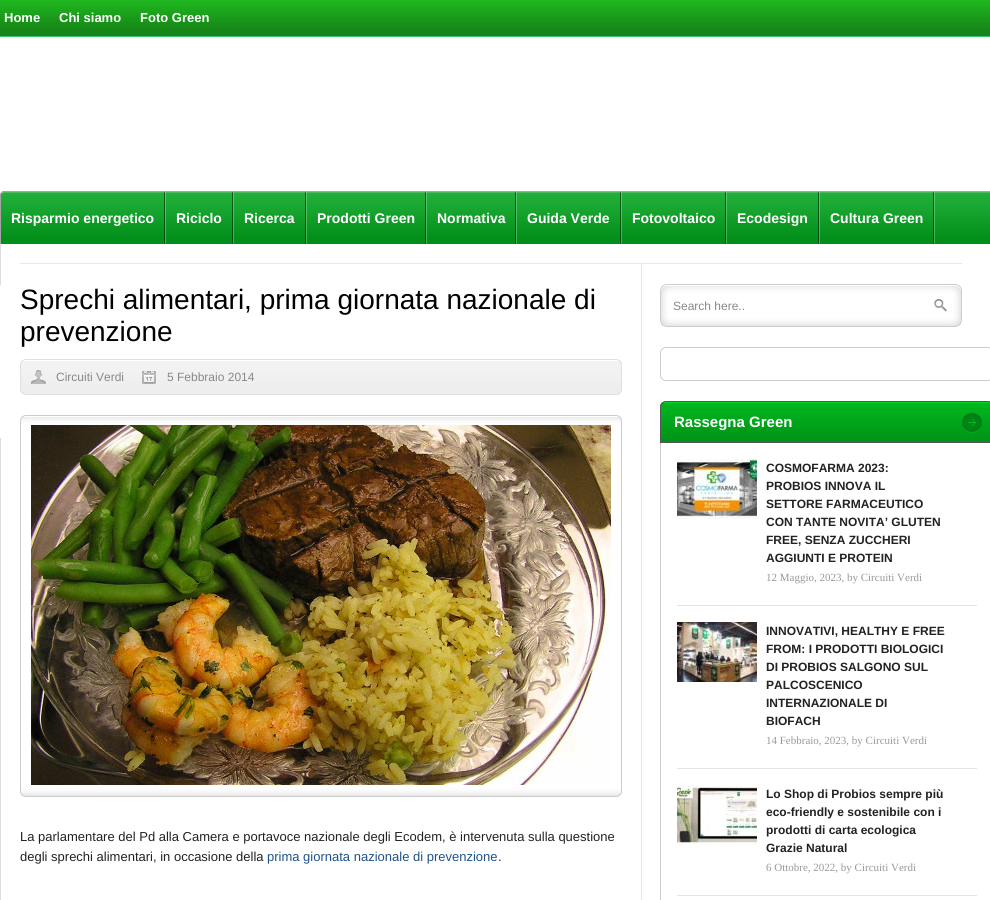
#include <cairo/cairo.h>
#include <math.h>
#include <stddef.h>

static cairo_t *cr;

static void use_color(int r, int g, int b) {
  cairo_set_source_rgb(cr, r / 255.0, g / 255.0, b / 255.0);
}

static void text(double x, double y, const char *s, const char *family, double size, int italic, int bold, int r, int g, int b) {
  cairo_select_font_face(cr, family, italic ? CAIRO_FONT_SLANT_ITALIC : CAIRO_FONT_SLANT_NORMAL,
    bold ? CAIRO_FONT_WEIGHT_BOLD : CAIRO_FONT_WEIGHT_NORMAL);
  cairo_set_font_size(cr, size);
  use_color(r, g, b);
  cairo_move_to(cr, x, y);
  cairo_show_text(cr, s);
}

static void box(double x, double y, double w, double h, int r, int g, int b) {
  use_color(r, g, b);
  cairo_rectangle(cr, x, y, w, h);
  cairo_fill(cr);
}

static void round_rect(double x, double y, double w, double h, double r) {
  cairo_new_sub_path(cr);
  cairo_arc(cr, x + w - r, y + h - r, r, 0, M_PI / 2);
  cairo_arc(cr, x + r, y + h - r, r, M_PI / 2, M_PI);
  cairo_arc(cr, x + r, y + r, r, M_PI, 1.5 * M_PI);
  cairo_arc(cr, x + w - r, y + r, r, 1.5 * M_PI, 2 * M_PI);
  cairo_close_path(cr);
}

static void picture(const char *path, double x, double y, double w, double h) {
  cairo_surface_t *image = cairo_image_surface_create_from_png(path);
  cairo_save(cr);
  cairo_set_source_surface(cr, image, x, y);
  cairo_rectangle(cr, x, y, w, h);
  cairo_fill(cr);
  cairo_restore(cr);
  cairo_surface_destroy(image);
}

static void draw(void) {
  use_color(255, 255, 255);
  cairo_paint(cr);
  box(0, 36, 990, 1, 45, 200, 115);
  picture("img_01.png", 0, 0, 990, 36);
  use_color(0, 177, 30);
  cairo_new_path(cr);
  cairo_move_to(cr, 5, 191);
  cairo_line_to(cr, 990, 191);
  cairo_curve_to(cr, 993, 191, 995, 193, 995, 196);
  cairo_line_to(cr, 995, 244);
  cairo_line_to(cr, 0, 244);
  cairo_line_to(cr, 0, 196);
  cairo_curve_to(cr, 0, 193, 2, 191, 5, 191);
  cairo_close_path(cr);
  cairo_fill(cr);
  picture("img_02.png", 0, 192, 990, 52);
  use_color(165, 165, 165);
  cairo_set_fill_rule(cr, CAIRO_FILL_RULE_EVEN_ODD);
  cairo_new_path(cr);
  cairo_move_to(cr, 5, 191);
  cairo_line_to(cr, 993, 191);
  cairo_curve_to(cr, 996, 191, 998, 193, 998, 196);
  cairo_line_to(cr, 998, 244);
  cairo_line_to(cr, 0, 244);
  cairo_line_to(cr, 0, 196);
  cairo_curve_to(cr, 0, 193, 2, 191, 5, 191);
  cairo_close_path(cr);
  cairo_move_to(cr, 5, 192);
  cairo_line_to(cr, 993, 192);
  cairo_curve_to(cr, 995, 192, 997, 194, 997, 196);
  cairo_line_to(cr, 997, 244);
  cairo_line_to(cr, 1, 244);
  cairo_line_to(cr, 1, 196);
  cairo_curve_to(cr, 1, 194, 3, 192, 5, 192);
  cairo_close_path(cr);
  cairo_fill(cr);
  picture("img_03.png", 164, 192, 2, 52);
  picture("img_03.png", 232, 192, 2, 52);
  picture("img_03.png", 305, 192, 2, 52);
  picture("img_03.png", 425, 192, 2, 52);
  picture("img_03.png", 515, 192, 2, 52);
  picture("img_03.png", 620, 192, 2, 52);
  picture("img_03.png", 725, 192, 2, 52);
  picture("img_03.png", 818, 192, 2, 52);
  picture("img_03.png", 933, 192, 2, 52);
  box(0, 244, 1, 656, 221, 221, 221);
  box(641, 263, 1, 637, 232, 232, 232);
  box(20, 263, 942, 1, 232, 232, 232);
  box(0, 284, 1, 155, 255, 255, 255);
  use_color(221, 221, 221);
  cairo_new_path(cr);
  cairo_move_to(cr, -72, 284);
  cairo_line_to(cr, 1, 284);
  cairo_line_to(cr, 1, 439);
  cairo_line_to(cr, -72, 439);
  cairo_curve_to(cr, -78, 439, -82, 435, -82, 429);
  cairo_line_to(cr, -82, 294);
  cairo_curve_to(cr, -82, 288, -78, 284, -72, 284);
  cairo_close_path(cr);
  cairo_move_to(cr, -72, 285);
  cairo_line_to(cr, 1, 285);
  cairo_line_to(cr, 1, 438);
  cairo_line_to(cr, -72, 438);
  cairo_curve_to(cr, -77, 438, -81, 434, -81, 429);
  cairo_line_to(cr, -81, 294);
  cairo_curve_to(cr, -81, 289, -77, 285, -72, 285);
  cairo_close_path(cr);
  cairo_fill(cr);
  picture("img_04.png", 20, 361, 602, 33);
  round_rect(20.5, 359.5, 601, 35, 5.5);
  use_color(224, 224, 224);
  cairo_set_line_width(cr, 1);
  cairo_stroke(cr);
  picture("img_05.png", 31, 370, 15, 14);
  picture("img_06.png", 142, 371, 14, 13);
  picture("img_07.png", 20, 417, 602, 379);
  round_rect(20.5, 415.5, 601, 381, 5.5);
  use_color(204, 204, 204);
  cairo_stroke(cr);
  picture("img_08.png", 31, 425, 580, 360);
  picture("img_09.png", 660, 284, 302, 43);
  round_rect(660.5, 347.5, 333, 33, 5.5);
  cairo_stroke(cr);
  round_rect(660.5, 401.5, 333, 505, 5.5);
  cairo_stroke(cr);
  picture("img_10.png", 660, 402, 330, 40);
  cairo_new_path(cr);
  cairo_move_to(cr, 666, 401.5);
  cairo_line_to(cr, 988, 401.5);
  cairo_curve_to(cr, 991, 401.5, 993.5, 404, 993.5, 407);
  cairo_line_to(cr, 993.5, 442.5);
  cairo_line_to(cr, 660.5, 442.5);
  cairo_line_to(cr, 660.5, 407);
  cairo_curve_to(cr, 660.5, 404, 663, 401.5, 666, 401.5);
  cairo_close_path(cr);
  use_color(85, 85, 85);
  cairo_stroke(cr);
  picture("img_11.png", 962, 413, 20, 20);
  box(677, 605, 300, 1, 228, 228, 228);
  picture("img_12.png", 677, 459, 80, 60);
  box(677, 768, 300, 1, 228, 228, 228);
  picture("img_13.png", 677, 622, 80, 60);
  box(677, 895, 300, 1, 228, 228, 228);
  picture("img_14.png", 677, 785, 80, 60);
  text(4, 22, "Home", "Liberation Sans", 13, 0, 1, 255, 255, 255);
  text(59, 22, "Chi siamo", "Liberation Sans", 13, 0, 1, 255, 255, 255);
  text(140, 22, "Foto Green", "Liberation Sans", 13, 0, 1, 255, 255, 255);
  text(11, 223, "Risparmio energetico", "Liberation Sans", 14, 0, 1, 255, 255, 255);
  text(176, 223, "Riciclo", "Liberation Sans", 14, 0, 1, 255, 255, 255);
  text(244, 223, "Ricerca", "Liberation Sans", 14, 0, 1, 255, 255, 255);
  text(317, 223, "Prodotti Green", "Liberation Sans", 14, 0, 1, 255, 255, 255);
  text(437, 223, "Normativa", "Liberation Sans", 14, 0, 1, 255, 255, 255);
  text(527, 223, "Guida Verde", "Liberation Sans", 14, 0, 1, 255, 255, 255);
  text(632, 223, "Fotovoltaico", "Liberation Sans", 14, 0, 1, 255, 255, 255);
  text(737, 223, "Ecodesign", "Liberation Sans", 14, 0, 1, 255, 255, 255);
  text(830, 223, "Cultura Green", "Liberation Sans", 14, 0, 1, 255, 255, 255);
  text(20, 309, "Sprechi alimentari, prima giornata nazionale di", "Liberation Sans", 28, 0, 0, 0, 0, 0);
  text(20, 341, "prevenzione", "Liberation Sans", 28, 0, 0, 0, 0, 0);
  text(56, 381, "Circuiti Verdi", "Liberation Sans", 12, 0, 0, 136, 136, 136);
  text(167, 381, "5 Febbraio 2014", "Liberation Sans", 12, 0, 0, 136, 136, 136);
  text(20, 841, "La parlamentare del Pd alla Camera e portavoce nazionale degli Ecodem, è intervenuta sulla questione", "Liberation Sans", 13, 0, 0, 34, 34, 34);
  text(20, 861, "degli sprechi alimentari, in occasione della", "Liberation Sans", 13, 0, 0, 34, 34, 34);
  text(267, 861, "prima giornata nazionale di prevenzione", "Liberation Sans", 13, 0, 0, 30, 83, 138);
  text(498, 861, ".", "Liberation Sans", 13, 0, 0, 34, 34, 34);
  text(673, 310, "Search here..", "Liberation Sans", 12, 0, 0, 136, 136, 136);
  text(674, 427, "Rassegna Green", "Liberation Sans", 15, 0, 1, 255, 255, 255);
  text(766, 472, "COSMOFARMA 2023:", "Liberation Sans", 12, 0, 1, 34, 34, 34);
  text(766, 490, "PROBIOS INNOVA IL", "Liberation Sans", 12, 0, 1, 34, 34, 34);
  text(766, 508, "SETTORE FARMACEUTICO", "Liberation Sans", 12, 0, 1, 34, 34, 34);
  text(766, 526, "CON TANTE NOVITA’ GLUTEN", "Liberation Sans", 12, 0, 1, 34, 34, 34);
  text(766, 544, "FREE, SENZA ZUCCHERI", "Liberation Sans", 12, 0, 1, 34, 34, 34);
  text(766, 562, "AGGIUNTI E PROTEIN", "Liberation Sans", 12, 0, 1, 34, 34, 34);
  text(766, 581, "12 Maggio, 2023, by Circuiti Verdi", "Liberation Serif", 11, 0, 0, 153, 153, 153);
  text(766, 635, "INNOVATIVI, HEALTHY E FREE", "Liberation Sans", 12, 0, 1, 34, 34, 34);
  text(766, 653, "FROM: I PRODOTTI BIOLOGICI", "Liberation Sans", 12, 0, 1, 34, 34, 34);
  text(766, 671, "DI PROBIOS SALGONO SUL", "Liberation Sans", 12, 0, 1, 34, 34, 34);
  text(766, 689, "PALCOSCENICO", "Liberation Sans", 12, 0, 1, 34, 34, 34);
  text(766, 707, "INTERNAZIONALE DI", "Liberation Sans", 12, 0, 1, 34, 34, 34);
  text(766, 725, "BIOFACH", "Liberation Sans", 12, 0, 1, 34, 34, 34);
  text(766, 744, "14 Febbraio, 2023, by Circuiti Verdi", "Liberation Serif", 11, 0, 0, 153, 153, 153);
  text(766, 798, "Lo Shop di Probios sempre più", "Liberation Sans", 12, 0, 1, 34, 34, 34);
  text(766, 816, "eco-friendly e sostenibile con i", "Liberation Sans", 12, 0, 1, 34, 34, 34);
  text(766, 834, "prodotti di carta ecologica", "Liberation Sans", 12, 0, 1, 34, 34, 34);
  text(766, 852, "Grazie Natural", "Liberation Sans", 12, 0, 1, 34, 34, 34);
  text(766, 871, "6 Ottobre, 2022, by Circuiti Verdi", "Liberation Serif", 11, 0, 0, 153, 153, 153);
}

int main(void) {
  cairo_surface_t *surface = cairo_image_surface_create(CAIRO_FORMAT_RGB24, 990, 900);
  cr = cairo_create(surface);
  cairo_font_options_t *options = cairo_font_options_create();
  cairo_font_options_set_hint_metrics(options, CAIRO_HINT_METRICS_OFF);
  cairo_font_options_set_hint_style(options, CAIRO_HINT_STYLE_NONE);
  cairo_set_font_options(cr, options);
  cairo_set_miter_limit(cr, 4);
  draw();
  cairo_surface_write_to_png(surface, "out.png");
  cairo_font_options_destroy(options);
  cairo_destroy(cr);
  cairo_surface_destroy(surface);
  return 0;
}
